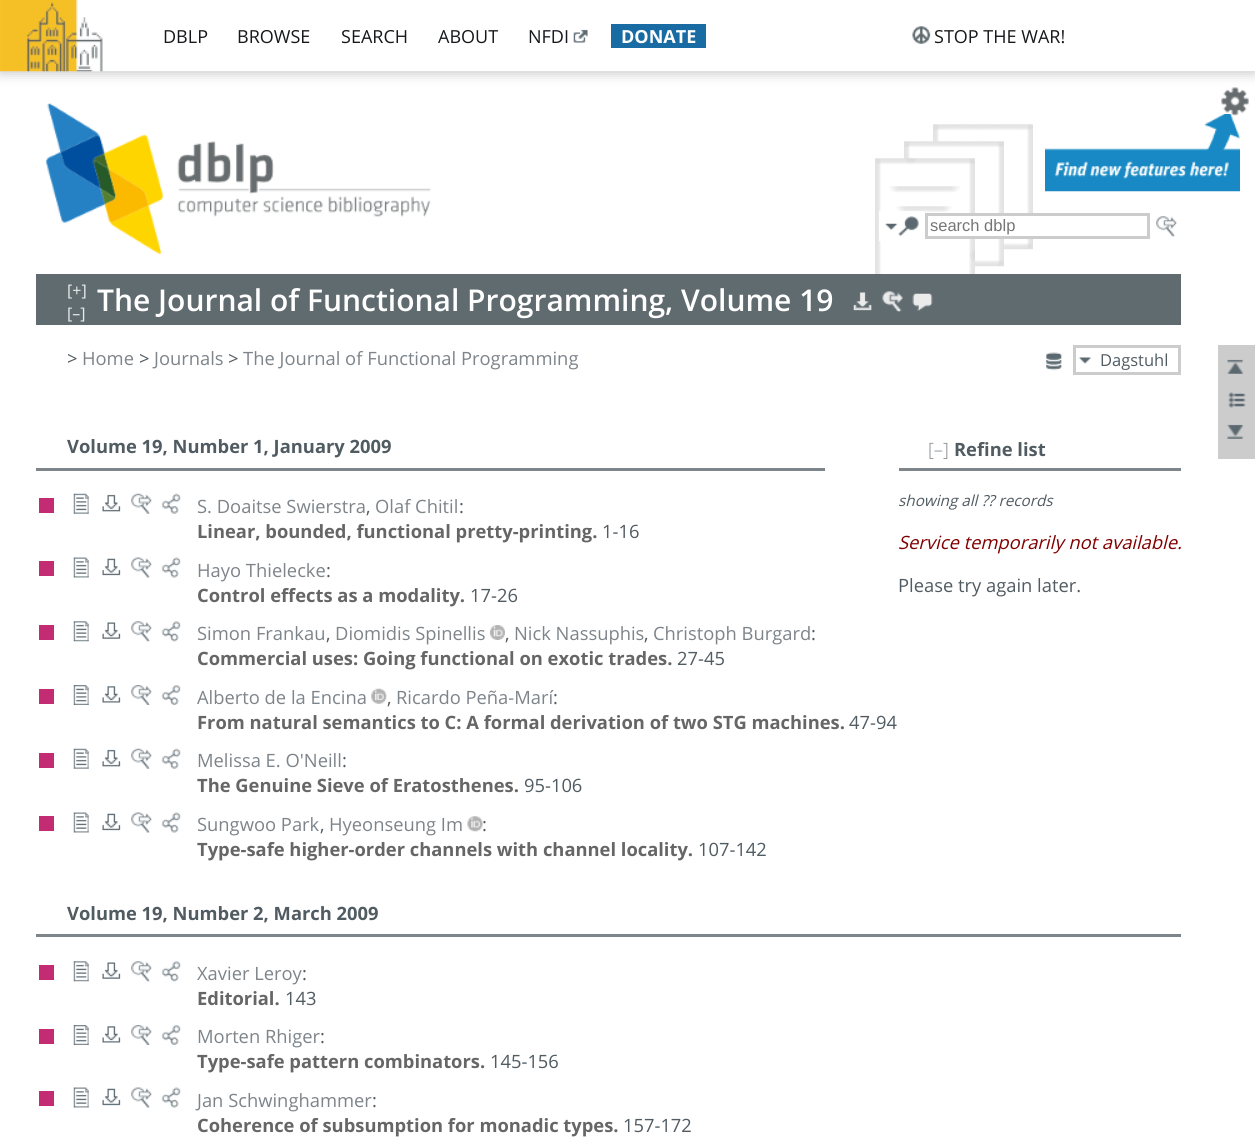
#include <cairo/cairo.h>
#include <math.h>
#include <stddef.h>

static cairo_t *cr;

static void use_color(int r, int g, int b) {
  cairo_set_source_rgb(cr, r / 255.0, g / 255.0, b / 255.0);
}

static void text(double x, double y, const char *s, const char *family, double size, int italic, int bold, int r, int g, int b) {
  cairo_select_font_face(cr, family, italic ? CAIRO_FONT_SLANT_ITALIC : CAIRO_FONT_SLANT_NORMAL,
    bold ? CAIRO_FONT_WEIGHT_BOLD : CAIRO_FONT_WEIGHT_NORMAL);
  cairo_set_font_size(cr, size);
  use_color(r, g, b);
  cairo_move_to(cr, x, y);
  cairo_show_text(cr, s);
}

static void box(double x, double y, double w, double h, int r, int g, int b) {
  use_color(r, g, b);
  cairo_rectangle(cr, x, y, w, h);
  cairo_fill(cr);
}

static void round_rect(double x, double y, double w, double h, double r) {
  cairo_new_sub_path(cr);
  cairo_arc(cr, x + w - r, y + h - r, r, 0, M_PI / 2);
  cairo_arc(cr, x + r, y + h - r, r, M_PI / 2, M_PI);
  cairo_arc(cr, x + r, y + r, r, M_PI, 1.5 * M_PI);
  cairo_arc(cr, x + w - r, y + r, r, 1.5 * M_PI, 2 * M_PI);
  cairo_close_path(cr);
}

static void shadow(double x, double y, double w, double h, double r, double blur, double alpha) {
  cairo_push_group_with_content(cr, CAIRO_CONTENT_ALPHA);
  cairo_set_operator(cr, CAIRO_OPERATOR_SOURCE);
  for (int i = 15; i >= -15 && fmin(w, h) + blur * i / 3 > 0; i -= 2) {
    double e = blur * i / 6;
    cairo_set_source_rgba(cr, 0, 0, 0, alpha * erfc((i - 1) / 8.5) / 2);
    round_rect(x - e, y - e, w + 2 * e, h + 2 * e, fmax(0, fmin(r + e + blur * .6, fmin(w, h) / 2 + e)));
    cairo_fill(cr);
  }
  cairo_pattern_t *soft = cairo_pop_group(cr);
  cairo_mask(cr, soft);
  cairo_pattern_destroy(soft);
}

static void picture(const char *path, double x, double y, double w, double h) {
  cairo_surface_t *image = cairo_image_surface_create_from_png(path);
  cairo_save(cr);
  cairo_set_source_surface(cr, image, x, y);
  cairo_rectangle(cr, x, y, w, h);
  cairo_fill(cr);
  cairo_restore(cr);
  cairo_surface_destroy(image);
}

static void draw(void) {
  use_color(255, 255, 255);
  cairo_paint(cr);
  picture("img_07.png", 1045, 114, 195, 78);
  picture("img_06.png", 1221, 87, 28, 29);
  use_color(0, 0, 0);
  shadow(0, 3, 1255, 71, 0, 6, 0.2);
  box(102, 0, 1153, 71, 255, 255, 255);
  picture("img_01.png", 0, 0, 103, 72);
  picture("img_02.png", 573, 29, 15, 14);
  box(611, 24, 95, 24, 25, 108, 163);
  picture("img_03.png", 912, 26, 19, 18);
  picture("img_04.png", 875, 124, 158, 150);
  picture("img_05.png", 46, 103, 385, 151);
  box(879, 211, 45, 30, 255, 255, 255);
  picture("img_08.png", 885, 223, 13, 8);
  picture("img_09.png", 898, 216, 21, 21);
  box(969, 216, 64, 20, 255, 255, 255);
  cairo_rectangle(cr, 926.5, 214.5, 222, 23);
  use_color(204, 204, 204);
  cairo_set_line_width(cr, 3);
  cairo_stroke(cr);
  picture("img_10.png", 1156, 216, 21, 21);
  box(36, 274, 1145, 51, 96, 107, 112);
  picture("img_11.png", 853, 292, 19, 19);
  picture("img_12.png", 882, 291, 21, 21);
  picture("img_13.png", 912, 293, 21, 19);
  picture("img_14.png", 1046, 352, 16, 19);
  picture("img_15.png", 1078, 357, 14, 7);
  cairo_rectangle(cr, 1074.5, 346.5, 105, 27);
  use_color(204, 204, 204);
  cairo_stroke(cr);
  box(1218, 345, 37, 114, 204, 204, 204);
  picture("img_16.png", 1227, 359, 17, 15);
  picture("img_17.png", 1228, 392, 18, 16);
  picture("img_18.png", 1227, 424, 17, 15);
  box(36, 468, 789, 3, 125, 132, 138);
  box(899, 468, 282, 3, 125, 132, 138);
  box(39, 498, 15, 15, 195, 43, 114);
  picture("img_19.png", 73, 493, 16, 21);
  picture("img_20.png", 102, 494, 19, 18);
  picture("img_21.png", 131, 493, 21, 21);
  picture("img_22.png", 161, 493, 20, 21);
  box(39, 561, 15, 15, 195, 43, 114);
  picture("img_23.png", 73, 557, 16, 21);
  picture("img_24.png", 102, 558, 19, 18);
  picture("img_25.png", 131, 557, 21, 21);
  picture("img_26.png", 161, 557, 20, 21);
  box(39, 625, 15, 15, 195, 43, 114);
  picture("img_27.png", 73, 621, 16, 21);
  picture("img_28.png", 102, 622, 19, 17);
  picture("img_10.png", 131, 621, 21, 21);
  picture("img_29.png", 161, 621, 20, 21);
  picture("img_30.png", 490, 625, 15, 15);
  box(39, 689, 15, 15, 195, 43, 114);
  picture("img_31.png", 73, 685, 16, 20);
  picture("img_32.png", 102, 686, 19, 17);
  picture("img_33.png", 131, 685, 21, 20);
  picture("img_34.png", 161, 685, 20, 20);
  picture("img_35.png", 371, 688, 16, 16);
  box(39, 753, 15, 15, 195, 43, 114);
  picture("img_19.png", 73, 748, 16, 21);
  picture("img_20.png", 102, 749, 19, 18);
  picture("img_21.png", 131, 748, 21, 21);
  picture("img_22.png", 161, 748, 20, 21);
  box(39, 816, 15, 15, 195, 43, 114);
  picture("img_23.png", 73, 812, 16, 21);
  picture("img_24.png", 102, 813, 19, 18);
  picture("img_25.png", 131, 812, 21, 21);
  picture("img_26.png", 161, 812, 20, 21);
  picture("img_36.png", 467, 816, 16, 16);
  box(36, 934, 1145, 3, 125, 132, 138);
  box(39, 965, 15, 15, 195, 43, 114);
  picture("img_27.png", 73, 961, 16, 21);
  picture("img_28.png", 102, 962, 19, 17);
  picture("img_10.png", 131, 961, 21, 21);
  picture("img_29.png", 161, 961, 20, 21);
  box(39, 1029, 15, 15, 195, 43, 114);
  picture("img_37.png", 73, 1025, 16, 20);
  picture("img_38.png", 102, 1026, 19, 17);
  picture("img_39.png", 131, 1025, 21, 20);
  picture("img_40.png", 161, 1025, 20, 20);
  box(39, 1091, 15, 15, 195, 43, 114);
  picture("img_23.png", 73, 1087, 16, 21);
  picture("img_24.png", 102, 1088, 19, 18);
  picture("img_25.png", 131, 1087, 21, 21);
  picture("img_26.png", 161, 1087, 20, 21);
  text(163, 43, "DBLP", "Open Sans", 18, 0, 0, 22, 24, 27);
  text(237, 43, "BROWSE", "Open Sans", 18, 0, 0, 22, 24, 27);
  text(341, 43, "SEARCH", "Open Sans", 18, 0, 0, 22, 24, 27);
  text(438, 43, "ABOUT", "Open Sans", 18, 0, 0, 22, 24, 27);
  text(528, 43, "NFDI", "Open Sans", 18, 0, 0, 22, 24, 27);
  text(621, 43, "DONATE", "Open Sans", 18, 0, 1, 255, 255, 255);
  text(934, 43, "STOP THE WAR!", "Open Sans", 18, 0, 0, 22, 24, 27);
  text(930, 231, "search dblp", "Liberation Sans", 16.5, 0, 0, 117, 117, 117);
  text(67, 296, "[+]", "Open Sans", 16, 0, 0, 235, 235, 235);
  text(67, 319, "[–]", "Open Sans", 16, 0, 0, 235, 235, 235);
  text(97, 311, "The Journal of Functional Programming, Volume 19", "Open Sans SemiBold", 30, 0, 0, 255, 255, 255);
  text(67, 365, ">", "Open Sans", 18.35, 0, 0, 80, 91, 98);
  text(82, 365, "Home", "Open Sans", 18.35, 0, 0, 125, 132, 138);
  text(139, 365, ">", "Open Sans", 18.35, 0, 0, 80, 91, 98);
  text(154, 365, "Journals", "Open Sans", 18.35, 0, 0, 125, 132, 138);
  text(228, 365, ">", "Open Sans", 18.35, 0, 0, 80, 91, 98);
  text(243, 365, "The Journal of Functional Programming", "Open Sans", 18.35, 0, 0, 125, 132, 138);
  text(1100, 366, "Dagstuhl", "Open Sans", 16.5, 0, 0, 80, 91, 98);
  text(67, 453, "Volume 19, Number 1, January 2009", "Open Sans", 18.35, 0, 1, 80, 91, 98);
  text(928, 456, "[–]", "Open Sans Light", 18.35, 0, 0, 125, 132, 138);
  text(954, 456, "Refine list", "Open Sans", 18.35, 0, 1, 80, 91, 98);
  text(898, 506, "showing all ?\077 records", "Open Sans", 15.25, 1, 0, 80, 91, 98);
  text(898, 549, "Service temporarily not available.", "Open Sans", 18.35, 1, 0, 128, 0, 0);
  text(898, 592, "Please try again later.", "Open Sans", 18.35, 0, 0, 80, 91, 98);
  text(197, 513, "S. Doaitse Swierstra", "Open Sans", 18.35, 0, 0, 125, 132, 138);
  text(366, 513, ",", "Open Sans", 18.35, 0, 0, 80, 91, 98);
  text(375, 513, "Olaf Chitil", "Open Sans", 18.35, 0, 0, 125, 132, 138);
  text(459, 513, ":", "Open Sans", 18.35, 0, 0, 80, 91, 98);
  text(197, 538, "Linear, bounded, functional pretty-printing.", "Open Sans", 18.35, 0, 1, 102, 102, 102);
  text(602, 538, "1-16", "Open Sans", 18.35, 0, 0, 80, 91, 98);
  text(197, 577, "Hayo Thielecke", "Open Sans", 18.35, 0, 0, 125, 132, 138);
  text(326, 577, ":", "Open Sans", 18.35, 0, 0, 80, 91, 98);
  text(197, 602, "Control effects as a modality.", "Open Sans", 18.35, 0, 1, 102, 102, 102);
  text(470, 602, "17-26", "Open Sans", 18.35, 0, 0, 80, 91, 98);
  text(197, 640, "Simon Frankau", "Open Sans", 18.35, 0, 0, 125, 132, 138);
  text(326, 640, ",", "Open Sans", 18.35, 0, 0, 80, 91, 98);
  text(335, 640, "Diomidis Spinellis", "Open Sans", 18.35, 0, 0, 125, 132, 138);
  text(505, 640, ",", "Open Sans", 18.35, 0, 0, 80, 91, 98);
  text(514, 640, "Nick Nassuphis", "Open Sans", 18.35, 0, 0, 125, 132, 138);
  text(644, 640, ",", "Open Sans", 18.35, 0, 0, 80, 91, 98);
  text(653, 640, "Christoph Burgard", "Open Sans", 18.35, 0, 0, 125, 132, 138);
  text(811, 640, ":", "Open Sans", 18.35, 0, 0, 80, 91, 98);
  text(197, 665, "Commercial uses: Going functional on exotic trades.", "Open Sans", 18.35, 0, 1, 102, 102, 102);
  text(677, 665, "27-45", "Open Sans", 18.35, 0, 0, 80, 91, 98);
  text(197, 704, "Alberto de la Encina", "Open Sans", 18.35, 0, 0, 125, 132, 138);
  text(387, 704, ",", "Open Sans", 18.35, 0, 0, 80, 91, 98);
  text(396, 704, "Ricardo Peña-Marí", "Open Sans", 18.35, 0, 0, 125, 132, 138);
  text(553, 704, ":", "Open Sans", 18.35, 0, 0, 80, 91, 98);
  text(197, 729, "From natural semantics to C: A formal derivation of two STG machines.", "Open Sans", 18.35, 0, 1, 102, 102, 102);
  text(849, 729, "47-94", "Open Sans", 18.35, 0, 0, 80, 91, 98);
  text(197, 767, "Melissa E. O'Neill", "Open Sans", 18.35, 0, 0, 125, 132, 138);
  text(342, 767, ":", "Open Sans", 18.35, 0, 0, 80, 91, 98);
  text(197, 792, "The Genuine Sieve of Eratosthenes.", "Open Sans", 18.35, 0, 1, 102, 102, 102);
  text(524, 792, "95-106", "Open Sans", 18.35, 0, 0, 80, 91, 98);
  text(197, 831, "Sungwoo Park", "Open Sans", 18.35, 0, 0, 125, 132, 138);
  text(320, 831, ",", "Open Sans", 18.35, 0, 0, 80, 91, 98);
  text(329, 831, "Hyeonseung Im", "Open Sans", 18.35, 0, 0, 125, 132, 138);
  text(482, 831, ":", "Open Sans", 18.35, 0, 0, 80, 91, 98);
  text(197, 856, "Type-safe higher-order channels with channel locality.", "Open Sans", 18.35, 0, 1, 102, 102, 102);
  text(698, 856, "107-142", "Open Sans", 18.35, 0, 0, 80, 91, 98);
  text(67, 920, "Volume 19, Number 2, March 2009", "Open Sans", 18.35, 0, 1, 80, 91, 98);
  text(197, 980, "Xavier Leroy", "Open Sans", 18.35, 0, 0, 125, 132, 138);
  text(302, 980, ":", "Open Sans", 18.35, 0, 0, 80, 91, 98);
  text(197, 1005, "Editorial.", "Open Sans", 18.35, 0, 1, 102, 102, 102);
  text(285, 1005, "143", "Open Sans", 18.35, 0, 0, 80, 91, 98);
  text(197, 1043, "Morten Rhiger", "Open Sans", 18.35, 0, 0, 125, 132, 138);
  text(320, 1043, ":", "Open Sans", 18.35, 0, 0, 80, 91, 98);
  text(197, 1068, "Type-safe pattern combinators.", "Open Sans", 18.35, 0, 1, 102, 102, 102);
  text(490, 1068, "145-156", "Open Sans", 18.35, 0, 0, 80, 91, 98);
  text(197, 1107, "Jan Schwinghammer", "Open Sans", 18.35, 0, 0, 125, 132, 138);
  text(372, 1107, ":", "Open Sans", 18.35, 0, 0, 80, 91, 98);
  text(197, 1132, "Coherence of subsumption for monadic types.", "Open Sans", 18.35, 0, 1, 102, 102, 102);
  text(623, 1132, "157-172", "Open Sans", 18.35, 0, 0, 80, 91, 98);
}

int main(void) {
  cairo_surface_t *surface = cairo_image_surface_create(CAIRO_FORMAT_RGB24, 1255, 1147);
  cr = cairo_create(surface);
  cairo_font_options_t *options = cairo_font_options_create();
  cairo_font_options_set_hint_metrics(options, CAIRO_HINT_METRICS_OFF);
  cairo_font_options_set_hint_style(options, CAIRO_HINT_STYLE_NONE);
  cairo_set_font_options(cr, options);
  cairo_set_miter_limit(cr, 4);
  draw();
  cairo_surface_write_to_png(surface, "out.png");
  cairo_font_options_destroy(options);
  cairo_destroy(cr);
  cairo_surface_destroy(surface);
  return 0;
}
